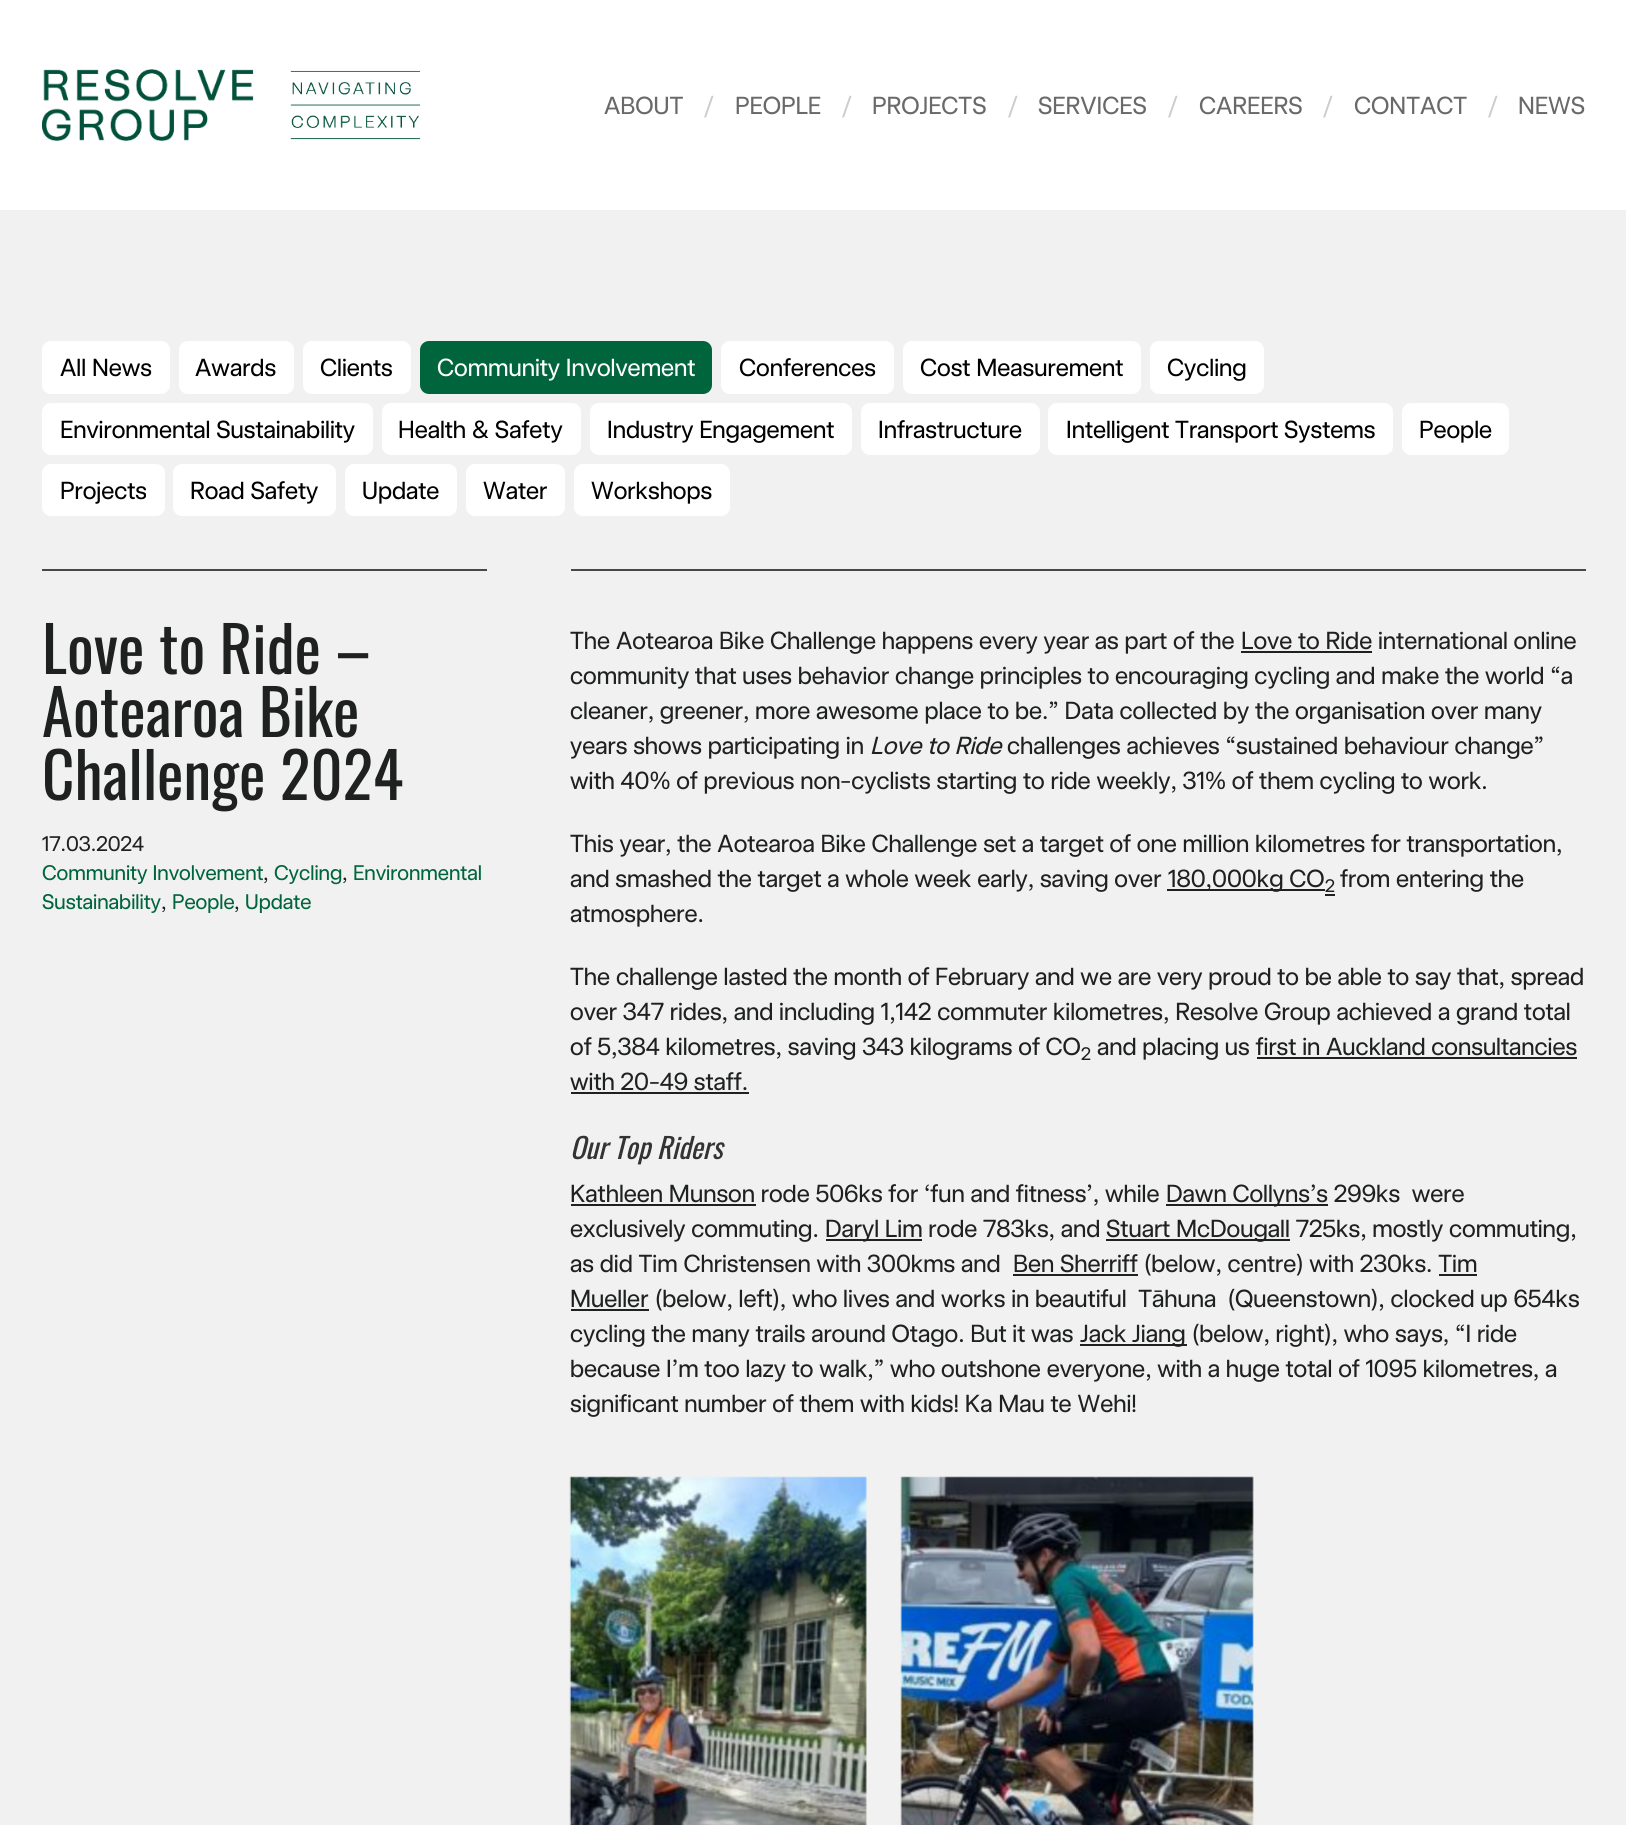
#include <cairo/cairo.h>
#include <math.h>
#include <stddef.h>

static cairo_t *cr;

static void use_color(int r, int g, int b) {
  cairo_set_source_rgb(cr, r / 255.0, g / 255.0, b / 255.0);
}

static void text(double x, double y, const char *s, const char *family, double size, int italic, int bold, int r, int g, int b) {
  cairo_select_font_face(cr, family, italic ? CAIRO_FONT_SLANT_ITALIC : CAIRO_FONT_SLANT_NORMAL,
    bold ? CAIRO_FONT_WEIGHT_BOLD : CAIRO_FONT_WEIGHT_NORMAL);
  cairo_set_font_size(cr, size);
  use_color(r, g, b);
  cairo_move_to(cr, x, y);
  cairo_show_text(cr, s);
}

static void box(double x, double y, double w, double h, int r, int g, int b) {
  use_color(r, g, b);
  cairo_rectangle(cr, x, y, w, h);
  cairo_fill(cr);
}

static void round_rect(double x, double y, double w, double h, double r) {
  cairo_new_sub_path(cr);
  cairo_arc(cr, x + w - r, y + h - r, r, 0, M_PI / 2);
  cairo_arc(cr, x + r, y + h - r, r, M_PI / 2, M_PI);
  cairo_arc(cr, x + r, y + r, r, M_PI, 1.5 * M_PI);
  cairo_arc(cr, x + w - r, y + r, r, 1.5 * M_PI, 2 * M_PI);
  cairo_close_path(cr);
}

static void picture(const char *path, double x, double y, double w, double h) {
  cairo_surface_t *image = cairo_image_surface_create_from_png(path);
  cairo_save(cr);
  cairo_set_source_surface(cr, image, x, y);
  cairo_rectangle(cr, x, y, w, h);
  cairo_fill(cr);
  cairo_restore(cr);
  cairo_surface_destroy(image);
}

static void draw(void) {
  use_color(241, 241, 241);
  cairo_paint(cr);
  box(0, 0, 1626, 210, 255, 255, 255);
  picture("img_01.png", 42, 69, 212, 72);
  picture("img_02.png", 290, 70, 131, 70);
  round_rect(42, 341, 128, 53, 9);
  cairo_fill(cr);
  round_rect(179, 341, 115, 53, 9);
  cairo_fill(cr);
  round_rect(303, 341, 108, 53, 9);
  cairo_fill(cr);
  use_color(0, 101, 60);
  round_rect(420, 341, 292, 53, 9);
  cairo_fill(cr);
  use_color(255, 255, 255);
  round_rect(721, 341, 173, 53, 9);
  cairo_fill(cr);
  round_rect(903, 341, 238, 53, 9);
  cairo_fill(cr);
  round_rect(1150, 341, 114, 53, 9);
  cairo_fill(cr);
  round_rect(42, 403, 331, 52, 9);
  cairo_fill(cr);
  round_rect(382, 403, 199, 52, 9);
  cairo_fill(cr);
  round_rect(590, 403, 262, 52, 9);
  cairo_fill(cr);
  round_rect(861, 403, 179, 52, 9);
  cairo_fill(cr);
  round_rect(1048, 403, 345, 52, 9);
  cairo_fill(cr);
  round_rect(1402, 403, 107, 52, 9);
  cairo_fill(cr);
  round_rect(42, 464, 123, 52, 9);
  cairo_fill(cr);
  round_rect(173, 464, 163, 52, 9);
  cairo_fill(cr);
  round_rect(345, 464, 112, 52, 9);
  cairo_fill(cr);
  round_rect(466, 464, 99, 52, 9);
  cairo_fill(cr);
  round_rect(574, 464, 156, 52, 9);
  cairo_fill(cr);
  box(42, 569, 445, 2, 72, 72, 72);
  box(571, 569, 1015, 2, 72, 72, 72);
  box(1241, 651, 131, 2, 31, 32, 32);
  box(1167, 889, 158, 2, 31, 32, 32);
  box(1325, 894, 10, 2, 31, 32, 32);
  box(1257, 1057, 320, 2, 31, 32, 32);
  box(571, 1092, 178, 2, 31, 32, 32);
  box(571, 1204, 185, 2, 31, 32, 32);
  box(1166, 1204, 162, 2, 31, 32, 32);
  box(826, 1239, 96, 2, 31, 32, 32);
  box(1106, 1239, 184, 2, 31, 32, 32);
  box(1013, 1274, 125, 2, 31, 32, 32);
  box(1439, 1274, 38, 2, 31, 32, 32);
  box(571, 1309, 78, 2, 31, 32, 32);
  box(1080, 1344, 107, 2, 31, 32, 32);
  picture("img_03.png", 569, 1476, 298, 349);
  picture("img_04.png", 900, 1476, 354, 349);
  text(604, 114, "ABOUT", "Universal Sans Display", 24.5, 0, 0, 105, 105, 105);
  text(704, 114, "/", "Universal Sans Display", 24.5, 0, 0, 204, 204, 204);
  text(735, 114, "PEOPLE", "Universal Sans Display", 24.5, 0, 0, 105, 105, 105);
  text(842, 114, "/", "Universal Sans Display", 24.5, 0, 0, 204, 204, 204);
  text(872, 114, "PROJECTS", "Universal Sans Display", 24.5, 0, 0, 105, 105, 105);
  text(1008, 114, "/", "Universal Sans Display", 24.5, 0, 0, 204, 204, 204);
  text(1038, 114, "SERVICES", "Universal Sans Display", 24.5, 0, 0, 105, 105, 105);
  text(1168, 114, "/", "Universal Sans Display", 24.5, 0, 0, 204, 204, 204);
  text(1199, 114, "CAREERS", "Universal Sans Display", 24.5, 0, 0, 105, 105, 105);
  text(1323, 114, "/", "Universal Sans Display", 24.5, 0, 0, 204, 204, 204);
  text(1354, 114, "CONTACT", "Universal Sans Display", 24.5, 0, 0, 105, 105, 105);
  text(1488, 114, "/", "Universal Sans Display", 24.5, 0, 0, 204, 204, 204);
  text(1518, 114, "NEWS", "Universal Sans Display", 24.5, 0, 0, 105, 105, 105);
  text(60, 376, "All News", "Universal Sans Display", 24.5, 0, 0, 0, 0, 0);
  text(195, 376, "Awards", "Universal Sans Display", 24.5, 0, 0, 0, 0, 0);
  text(320, 376, "Clients", "Universal Sans Display", 24.5, 0, 0, 0, 0, 0);
  text(437, 376, "Community Involvement", "Universal Sans Display", 24.5, 0, 0, 255, 255, 255);
  text(739, 376, "Conferences", "Universal Sans Display", 24.5, 0, 0, 0, 0, 0);
  text(920, 376, "Cost Measurement", "Universal Sans Display", 24.5, 0, 0, 0, 0, 0);
  text(1167, 376, "Cycling", "Universal Sans Display", 24.5, 0, 0, 0, 0, 0);
  text(60, 438, "Environmental Sustainability", "Universal Sans Display", 24.5, 0, 0, 0, 0, 0);
  text(398, 438, "Health & Safety", "Universal Sans Display", 24.5, 0, 0, 0, 0, 0);
  text(607, 438, "Industry Engagement", "Universal Sans Display", 24.5, 0, 0, 0, 0, 0);
  text(878, 438, "Infrastructure", "Universal Sans Display", 24.5, 0, 0, 0, 0, 0);
  text(1066, 438, "Intelligent Transport Systems", "Universal Sans Display", 24.5, 0, 0, 0, 0, 0);
  text(1419, 438, "People", "Universal Sans Display", 24.5, 0, 0, 0, 0, 0);
  text(60, 499, "Projects", "Universal Sans Display", 24.5, 0, 0, 0, 0, 0);
  text(190, 499, "Road Safety", "Universal Sans Display", 24.5, 0, 0, 0, 0, 0);
  text(362, 499, "Update", "Universal Sans Display", 24.5, 0, 0, 0, 0, 0);
  text(483, 499, "Water", "Universal Sans Display", 24.5, 0, 0, 0, 0, 0);
  text(591, 499, "Workshops", "Universal Sans Display", 24.5, 0, 0, 0, 0, 0);
  text(42, 674, "Love to Ride –", "Oswald", 63, 0, 0, 31, 32, 32);
  text(42, 737, "Aotearoa Bike", "Oswald", 63, 0, 0, 31, 32, 32);
  text(42, 800, "Challenge 2024", "Oswald", 63, 0, 0, 31, 32, 32);
  text(42, 851, "17.03.2024", "Universal Sans Display", 21, 0, 0, 31, 32, 32);
  text(42, 880, "Community Involvement", "Universal Sans Display", 21, 0, 0, 0, 101, 60);
  text(263, 880, ",", "Universal Sans Display", 21, 0, 0, 31, 32, 32);
  text(274, 880, "Cycling", "Universal Sans Display", 21, 0, 0, 0, 101, 60);
  text(342, 880, ",", "Universal Sans Display", 21, 0, 0, 31, 32, 32);
  text(353, 880, "Environmental", "Universal Sans Display", 21, 0, 0, 0, 101, 60);
  text(42, 909, "Sustainability", "Universal Sans Display", 21, 0, 0, 0, 101, 60);
  text(161, 909, ",", "Universal Sans Display", 21, 0, 0, 31, 32, 32);
  text(172, 909, "People", "Universal Sans Display", 21, 0, 0, 0, 101, 60);
  text(234, 909, ",", "Universal Sans Display", 21, 0, 0, 31, 32, 32);
  text(245, 909, "Update", "Universal Sans Display", 21, 0, 0, 0, 101, 60);
  text(570, 649, "The Aotearoa Bike Challenge happens every year as part of the", "Universal Sans Display", 24.5, 0, 0, 31, 32, 32);
  text(1241, 649, "Love to Ride international online", "Universal Sans Display", 24.5, 0, 0, 31, 32, 32);
  text(570, 684, "community that uses behavior change principles to encouraging cycling and make the world “a", "Universal Sans Display", 24.5, 0, 0, 31, 32, 32);
  text(570, 719, "cleaner, greener, more awesome place to be.” Data collected by the organisation over many", "Universal Sans Display", 24.5, 0, 0, 31, 32, 32);
  text(570, 754, "years shows participating in", "Universal Sans Display", 24.5, 0, 0, 31, 32, 32);
  text(870, 754, "Love to Ride", "Universal Sans Display", 24.5, 1, 0, 31, 32, 32);
  text(1007, 754, "challenges achieves “sustained behaviour change”", "Universal Sans Display", 24.5, 0, 0, 31, 32, 32);
  text(570, 789, "with 40% of previous non-cyclists starting to ride weekly, 31% of them cycling to work.", "Universal Sans Display", 24.5, 0, 0, 31, 32, 32);
  text(570, 852, "This year, the Aotearoa Bike Challenge set a target of one million kilometres for transportation,", "Universal Sans Display", 24.5, 0, 0, 31, 32, 32);
  text(570, 887, "and smashed the target a whole week early, saving over", "Universal Sans Display", 24.5, 0, 0, 31, 32, 32);
  text(1168, 887, "180,000kg CO", "Universal Sans Display", 24.5, 0, 0, 31, 32, 32);
  text(1325, 892, "2", "Universal Sans Display", 18, 0, 0, 31, 32, 32);
  text(1340, 887, "from entering the", "Universal Sans Display", 24.5, 0, 0, 31, 32, 32);
  text(570, 922, "atmosphere.", "Universal Sans Display", 24.5, 0, 0, 31, 32, 32);
  text(570, 985, "The challenge lasted the month of February and we are very proud to be able to say that, spread", "Universal Sans Display", 24.5, 0, 0, 31, 32, 32);
  text(570, 1020, "over 347 rides, and including 1,142 commuter kilometres, Resolve Group achieved a grand total", "Universal Sans Display", 24.5, 0, 0, 31, 32, 32);
  text(570, 1055, "of 5,384 kilometres, saving 343 kilograms of CO", "Universal Sans Display", 24.5, 0, 0, 31, 32, 32);
  text(1081, 1060, "2", "Universal Sans Display", 18, 0, 0, 31, 32, 32);
  text(1097, 1055, "and placing us first in Auckland consultancies", "Universal Sans Display", 24.5, 0, 0, 31, 32, 32);
  text(570, 1090, "with 20-49 staff.", "Universal Sans Display", 24.5, 0, 0, 31, 32, 32);
  text(570, 1159, "Our Top Riders", "Oswald", 28.5, 1, 0, 51, 51, 51);
  text(570, 1202, "Kathleen Munson rode 506ks for ‘fun and fitness’, while", "Universal Sans Display", 24.5, 0, 0, 31, 32, 32);
  text(1166, 1202, "Dawn Collyns’s 299ks  were", "Universal Sans Display", 24.5, 0, 0, 31, 32, 32);
  text(570, 1237, "exclusively commuting.", "Universal Sans Display", 24.5, 0, 0, 31, 32, 32);
  text(825, 1237, "Daryl Lim rode 783ks, and", "Universal Sans Display", 24.5, 0, 0, 31, 32, 32);
  text(1106, 1237, "Stuart McDougall 725ks, mostly commuting,", "Universal Sans Display", 24.5, 0, 0, 31, 32, 32);
  text(570, 1272, "as did Tim Christensen with 300kms and", "Universal Sans Display", 24.5, 0, 0, 31, 32, 32);
  text(1013, 1272, "Ben Sherriff", "Universal Sans Display", 24.5, 0, 0, 31, 32, 32);
  text(1144, 1272, "(below, centre) with 230ks. Tim", "Universal Sans Display", 24.5, 0, 0, 31, 32, 32);
  text(570, 1307, "Mueller", "Universal Sans Display", 24.5, 0, 0, 31, 32, 32);
  text(655, 1307, "(below, left), who lives and works in beautiful  Tāhuna  (Queenstown), clocked up 654ks", "Universal Sans Display", 24.5, 0, 0, 31, 32, 32);
  text(570, 1342, "cycling the many trails around Otago. But it was", "Universal Sans Display", 24.5, 0, 0, 31, 32, 32);
  text(1080, 1342, "Jack Jiang", "Universal Sans Display", 24.5, 0, 0, 31, 32, 32);
  text(1192, 1342, "(below, right), who says, “I ride", "Universal Sans Display", 24.5, 0, 0, 31, 32, 32);
  text(570, 1377, "because I’m too lazy to walk,” who outshone everyone, with a huge total of 1095 kilometres, a", "Universal Sans Display", 24.5, 0, 0, 31, 32, 32);
  text(570, 1412, "significant number of them with kids! Ka Mau te Wehi!", "Universal Sans Display", 24.5, 0, 0, 31, 32, 32);
}

int main(void) {
  cairo_surface_t *surface = cairo_image_surface_create(CAIRO_FORMAT_RGB24, 1626, 1825);
  cr = cairo_create(surface);
  cairo_font_options_t *options = cairo_font_options_create();
  cairo_font_options_set_hint_metrics(options, CAIRO_HINT_METRICS_OFF);
  cairo_font_options_set_hint_style(options, CAIRO_HINT_STYLE_NONE);
  cairo_set_font_options(cr, options);
  cairo_set_miter_limit(cr, 4);
  draw();
  cairo_surface_write_to_png(surface, "out.png");
  cairo_font_options_destroy(options);
  cairo_destroy(cr);
  cairo_surface_destroy(surface);
  return 0;
}
